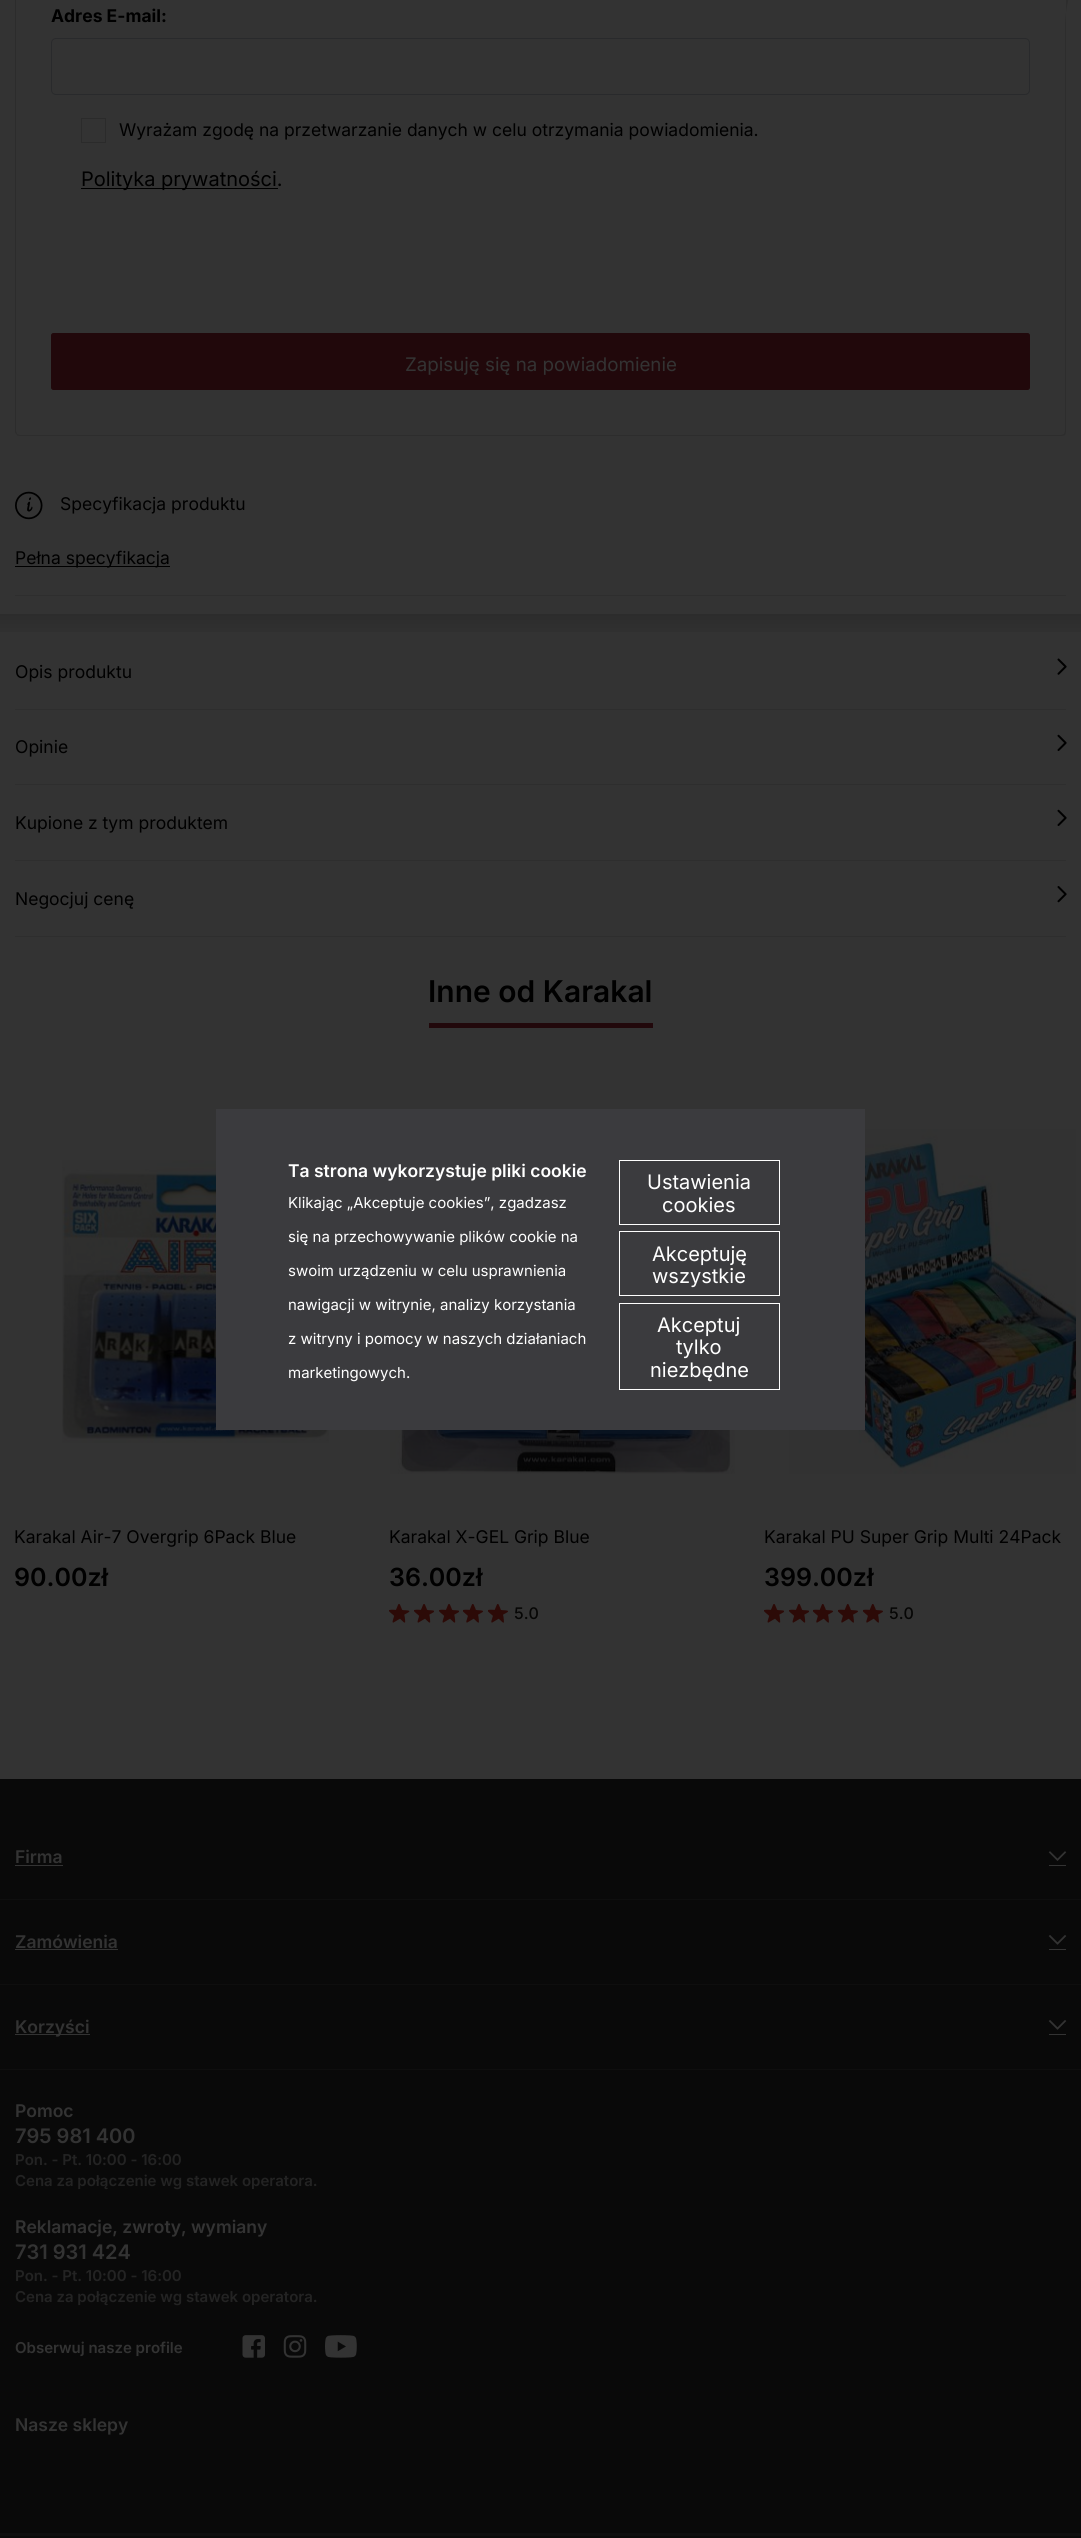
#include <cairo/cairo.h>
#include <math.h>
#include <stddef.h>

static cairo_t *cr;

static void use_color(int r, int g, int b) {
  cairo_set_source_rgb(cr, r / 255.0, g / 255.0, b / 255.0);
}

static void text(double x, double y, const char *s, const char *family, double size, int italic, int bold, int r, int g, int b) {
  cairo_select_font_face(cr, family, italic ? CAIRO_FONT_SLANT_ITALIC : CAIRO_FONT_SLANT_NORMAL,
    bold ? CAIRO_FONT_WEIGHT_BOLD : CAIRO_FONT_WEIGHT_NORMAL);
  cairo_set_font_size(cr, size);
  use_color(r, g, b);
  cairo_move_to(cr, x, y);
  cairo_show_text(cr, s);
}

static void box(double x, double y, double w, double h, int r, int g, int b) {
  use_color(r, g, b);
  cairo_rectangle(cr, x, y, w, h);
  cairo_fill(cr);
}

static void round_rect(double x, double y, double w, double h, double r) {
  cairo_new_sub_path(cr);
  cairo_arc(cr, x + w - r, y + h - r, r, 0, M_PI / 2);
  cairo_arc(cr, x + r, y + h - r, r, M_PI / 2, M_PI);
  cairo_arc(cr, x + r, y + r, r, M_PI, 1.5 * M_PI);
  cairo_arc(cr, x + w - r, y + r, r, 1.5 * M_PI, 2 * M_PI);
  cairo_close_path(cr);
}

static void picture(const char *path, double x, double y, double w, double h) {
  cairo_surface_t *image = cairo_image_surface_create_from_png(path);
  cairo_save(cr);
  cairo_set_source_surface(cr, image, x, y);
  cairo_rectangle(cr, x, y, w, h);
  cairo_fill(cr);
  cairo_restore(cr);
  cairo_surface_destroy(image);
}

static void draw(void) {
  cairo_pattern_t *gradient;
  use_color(51, 51, 51);
  cairo_paint(cr);
  cairo_set_source_rgba(cr, 0, 0, 0, 0.12);
  cairo_new_path(cr);
  cairo_move_to(cr, 1065, -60);
  cairo_line_to(cr, 1066, -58);
  cairo_line_to(cr, 1066, 431);
  cairo_curve_to(cr, 1066, 432, 1066, 434, 1065, 435);
  cairo_line_to(cr, 1064, 434);
  cairo_line_to(cr, 1065, 431);
  cairo_line_to(cr, 1065, 24);
  cairo_curve_to(cr, 1065, -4, 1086, -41, 1064, -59);
  cairo_close_path(cr);
  cairo_fill(cr);
  cairo_new_path(cr);
  cairo_move_to(cr, 1065, 435);
  cairo_curve_to(cr, 1064, 436, 1062, 436, 1061, 436);
  cairo_line_to(cr, 20, 436);
  cairo_curve_to(cr, 19, 436, 17, 436, 17, 435);
  cairo_line_to(cr, 17, 434);
  cairo_line_to(cr, 20, 435);
  cairo_line_to(cr, 1061, 435);
  cairo_line_to(cr, 1064, 434);
  cairo_close_path(cr);
  cairo_fill(cr);
  use_color(44, 44, 44);
  cairo_new_path(cr);
  cairo_move_to(cr, 15, -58);
  cairo_line_to(cr, 15, 431);
  cairo_curve_to(cr, 15, 433, 16, 434, 17, 435);
  cairo_line_to(cr, 17, 434);
  cairo_line_to(cr, 16, 431);
  cairo_line_to(cr, 16, -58);
  cairo_line_to(cr, 17, -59);
  cairo_line_to(cr, 16, -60);
  cairo_close_path(cr);
  cairo_fill(cr);
  round_rect(51.5, 38.5, 978, 56, 4.5);
  use_color(41, 42, 44);
  cairo_set_line_width(cr, 1);
  cairo_stroke(cr);
  cairo_rectangle(cr, 81.5, 118.5, 24, 24);
  use_color(43, 43, 43);
  cairo_stroke(cr);
  box(81, 188, 197, 1, 0, 0, 0);
  use_color(33, 8, 11);
  round_rect(51.5, 333.5, 978, 56, 2);
  cairo_fill_preserve(cr);
  cairo_stroke(cr);
  box(15, 595, 1051, 1, 46, 46, 46);
  picture("img_01.png", 15, 491, 28, 29);
  box(15, 566, 155, 1, 0, 0, 0);
  gradient = cairo_pattern_create_linear(541, 634, 541, 614);
  cairo_pattern_add_color_stop_rgba(gradient, 0, 0.192, 0.192, 0.192, 1);
  cairo_pattern_add_color_stop_rgba(gradient, 1, 0.173, 0.173, 0.173, 1);
  cairo_set_source(cr, gradient);
  cairo_pattern_destroy(gradient);
  cairo_rectangle(cr, 0, 614, 1081, 18);
  cairo_fill(cr);
  box(15, 709, 1051, 1, 46, 46, 46);
  picture("img_02.png", 1057, 658, 10, 17);
  box(15, 784, 1051, 1, 46, 46, 46);
  picture("img_03.png", 1057, 734, 10, 17);
  box(15, 860, 1051, 1, 46, 46, 46);
  picture("img_03.png", 1057, 809, 10, 17);
  box(15, 936, 1051, 1, 46, 46, 46);
  picture("img_04.png", 1057, 886, 10, 17);
  box(429, 1023, 224, 5, 33, 8, 11);
  picture("img_05.png", 62, 1160, 267, 283);
  picture("img_06.png", 390, 1430, 345, 44);
  picture("img_07.png", 389, 1604, 21, 19);
  picture("img_08.png", 414, 1604, 20, 19);
  picture("img_08.png", 439, 1604, 20, 19);
  picture("img_09.png", 463, 1604, 21, 19);
  picture("img_10.png", 488, 1604, 20, 19);
  picture("img_11.png", 789, 1129, 287, 345);
  picture("img_08.png", 764, 1604, 20, 19);
  picture("img_08.png", 789, 1604, 20, 19);
  picture("img_09.png", 813, 1604, 21, 19);
  picture("img_10.png", 838, 1604, 20, 19);
  picture("img_10.png", 863, 1604, 20, 19);
  box(216, 1109, 649, 321, 59, 59, 62);
  cairo_rectangle(cr, 619.5, 1160.5, 160, 64);
  use_color(254, 254, 254);
  cairo_stroke(cr);
  cairo_rectangle(cr, 619.5, 1231.5, 160, 64);
  cairo_stroke(cr);
  cairo_rectangle(cr, 619.5, 1303.5, 160, 86);
  cairo_stroke(cr);
  box(0, 1779, 1081, 759, 9, 9, 9);
  box(0, 1899, 1081, 1, 14, 14, 14);
  box(15, 1865, 48, 1, 51, 51, 51);
  picture("img_12.png", 1048, 1851, 19, 10);
  box(1049, 1865, 17, 1, 51, 51, 51);
  box(0, 1984, 1081, 1, 14, 14, 14);
  box(15, 1949, 103, 1, 51, 51, 51);
  picture("img_13.png", 1048, 1935, 19, 10);
  box(1049, 1949, 17, 1, 51, 51, 51);
  box(0, 2069, 1081, 1, 14, 14, 14);
  box(15, 2034, 75, 1, 51, 51, 51);
  picture("img_13.png", 1048, 2020, 19, 10);
  box(1049, 2034, 17, 1, 51, 51, 51);
  picture("img_14.png", 242, 2335, 23, 23);
  picture("img_15.png", 283, 2335, 24, 23);
  picture("img_16.png", 325, 2335, 32, 23);
  box(0, 2533, 1081, 3, 14, 14, 14);
  text(51, 22, "Adres E-mail:", "Inter", 17.5, 0, 1, 0, 0, 0);
  text(119, 136, "Wyrażam zgodę na przetwarzanie danych w celu otrzymania powiadomienia.", "Inter", 17.5, 0, 0, 0, 0, 0);
  text(81, 186, "Polityka prywatności.", "Inter", 20, 0, 0, 0, 0, 0);
  text(405, 371, "Zapisuję się na powiadomienie", "Inter", 18.75, 0, 0, 51, 51, 51);
  text(60, 510, "Specyfikacja produktu", "Inter", 17.5, 0, 0, 0, 0, 0);
  text(15, 564, "Pełna specyfikacja", "Inter", 17.5, 0, 0, 0, 0, 0);
  text(15, 678, "Opis produktu", "Inter", 17.5, 0, 0, 0, 0, 0);
  text(15, 753, "Opinie", "Inter", 17.5, 0, 0, 0, 0, 0);
  text(15, 829, "Kupione z tym produktem", "Inter", 17.5, 0, 0, 0, 0, 0);
  text(15, 905, "Negocjuj cenę", "Inter", 17.5, 0, 0, 0, 0, 0);
  text(428, 1002, "Inne od Karakal", "Inter SemiBold", 30, 0, 0, 0, 0, 0);
  text(14, 1543, "Karakal Air-7 Overgrip 6Pack Blue", "Inter", 17.5, 0, 0, 0, 0, 0);
  text(14, 1586, "90.00zł", "Inter SemiBold", 25, 0, 0, 0, 0, 0);
  text(389, 1543, "Karakal X-GEL Grip Blue", "Inter", 17.5, 0, 0, 0, 0, 0);
  text(389, 1586, "36.00zł", "Inter SemiBold", 25, 0, 0, 0, 0, 0);
  text(514, 1619, "5.0", "Inter Medium", 16, 0, 0, 6, 6, 5);
  text(764, 1543, "Karakal PU Super Grip Multi 24Pack", "Inter", 17.5, 0, 0, 0, 0, 0);
  text(764, 1586, "399.00zł", "Inter SemiBold", 25, 0, 0, 0, 0, 0);
  text(889, 1619, "5.0", "Inter Medium", 16, 0, 0, 6, 6, 5);
  text(288, 1177, "Ta strona wykorzystuje pliki cookie", "Inter SemiBold", 17.5, 0, 0, 255, 255, 255);
  text(288, 1208, "Klikając „Akceptuje cookies”, zgadzasz", "Inter", 15, 0, 0, 255, 255, 255);
  text(288, 1242, "się na przechowywanie plików cookie na", "Inter", 15, 0, 0, 255, 255, 255);
  text(288, 1276, "swoim urządzeniu w celu usprawnienia", "Inter", 15, 0, 0, 255, 255, 255);
  text(288, 1310, "nawigacji w witrynie, analizy korzystania", "Inter", 15, 0, 0, 255, 255, 255);
  text(288, 1344, "z witryny i pomocy w naszych działaniach", "Inter", 15, 0, 0, 255, 255, 255);
  text(288, 1378, "marketingowych.", "Inter", 15, 0, 0, 255, 255, 255);
  text(647, 1189, "Ustawienia", "Inter", 20, 0, 0, 255, 255, 255);
  text(662, 1212, "cookies", "Inter", 20, 0, 0, 255, 255, 255);
  text(652, 1261, "Akceptuję", "Inter", 20, 0, 0, 255, 255, 255);
  text(652, 1283, "wszystkie", "Inter", 20, 0, 0, 255, 255, 255);
  text(657, 1332, "Akceptuj", "Inter", 20, 0, 0, 255, 255, 255);
  text(676, 1354, "tylko", "Inter", 20, 0, 0, 255, 255, 255);
  text(650, 1377, "niezbędne", "Inter", 20, 0, 0, 255, 255, 255);
  text(15, 1863, "Firma", "Inter SemiBold", 17.5, 0, 0, 51, 51, 51);
  text(15, 1948, "Zamówienia", "Inter SemiBold", 17.5, 0, 0, 51, 51, 51);
  text(15, 2033, "Korzyści", "Inter SemiBold", 17.5, 0, 0, 51, 51, 51);
  text(15, 2117, "Pomoc", "Inter SemiBold", 17.5, 0, 0, 51, 51, 51);
  text(15, 2143, "795 981 400", "Inter SemiBold", 20, 0, 0, 51, 51, 51);
  text(15, 2165, "Pon. - Pt. 10:00 - 16:00", "Inter SemiBold", 15, 0, 0, 35, 35, 35);
  text(15, 2186, "Cena za połączenie wg stawek operatora.", "Inter SemiBold", 15, 0, 0, 35, 35, 35);
  text(15, 2233, "Reklamacje, zwroty, wymiany", "Inter SemiBold", 17.5, 0, 0, 51, 51, 51);
  text(15, 2259, "731 931 424", "Inter SemiBold", 20, 0, 0, 51, 51, 51);
  text(15, 2281, "Pon. - Pt. 10:00 - 16:00", "Inter SemiBold", 15, 0, 0, 35, 35, 35);
  text(15, 2302, "Cena za połączenie wg stawek operatora.", "Inter SemiBold", 15, 0, 0, 35, 35, 35);
  text(15, 2353, "Obserwuj nasze profile", "Inter SemiBold", 15, 0, 0, 51, 51, 51);
  text(15, 2431, "Nasze sklepy", "Inter SemiBold", 17.5, 0, 0, 51, 51, 51);
}

int main(void) {
  cairo_surface_t *surface = cairo_image_surface_create(CAIRO_FORMAT_RGB24, 1081, 2538);
  cr = cairo_create(surface);
  cairo_font_options_t *options = cairo_font_options_create();
  cairo_font_options_set_hint_metrics(options, CAIRO_HINT_METRICS_OFF);
  cairo_font_options_set_hint_style(options, CAIRO_HINT_STYLE_NONE);
  cairo_set_font_options(cr, options);
  cairo_set_miter_limit(cr, 4);
  draw();
  cairo_surface_write_to_png(surface, "out.png");
  cairo_font_options_destroy(options);
  cairo_destroy(cr);
  cairo_surface_destroy(surface);
  return 0;
}
